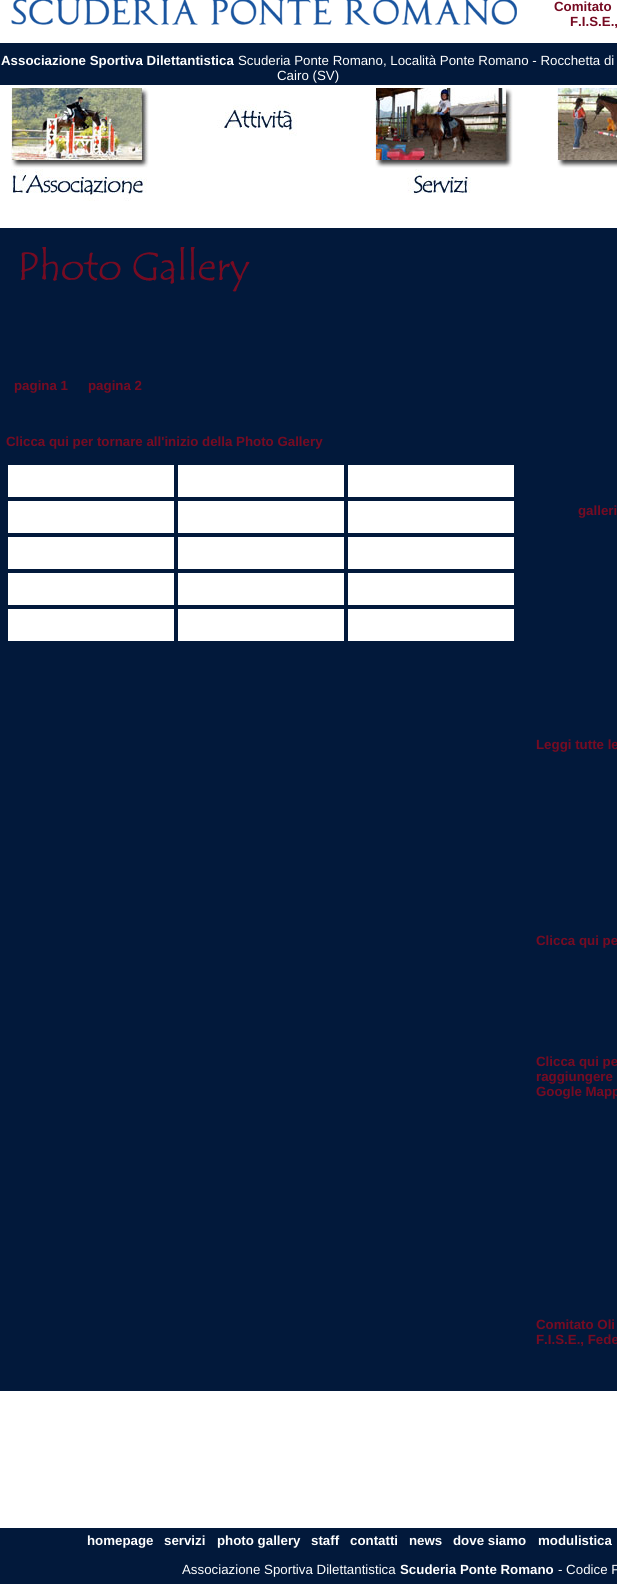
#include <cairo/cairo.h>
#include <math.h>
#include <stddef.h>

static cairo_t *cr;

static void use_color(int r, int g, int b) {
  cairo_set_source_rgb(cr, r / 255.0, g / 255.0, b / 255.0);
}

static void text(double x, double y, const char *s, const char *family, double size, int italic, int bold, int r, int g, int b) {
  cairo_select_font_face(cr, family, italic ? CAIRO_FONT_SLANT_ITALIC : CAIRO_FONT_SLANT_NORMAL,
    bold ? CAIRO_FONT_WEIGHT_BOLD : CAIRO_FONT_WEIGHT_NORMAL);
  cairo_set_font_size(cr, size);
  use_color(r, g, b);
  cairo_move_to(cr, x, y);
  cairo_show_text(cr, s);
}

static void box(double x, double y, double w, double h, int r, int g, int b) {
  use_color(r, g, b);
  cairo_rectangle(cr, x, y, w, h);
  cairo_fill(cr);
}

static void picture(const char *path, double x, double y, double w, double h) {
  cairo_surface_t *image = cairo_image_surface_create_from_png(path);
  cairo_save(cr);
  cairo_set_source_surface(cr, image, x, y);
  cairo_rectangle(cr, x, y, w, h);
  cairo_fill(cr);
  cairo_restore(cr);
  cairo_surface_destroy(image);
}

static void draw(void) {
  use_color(2, 25, 59);
  cairo_paint(cr);
  box(0, 0, 617, 43, 255, 255, 255);
  picture("img_01.png", 11, 0, 506, 25);
  box(0, 85, 617, 143, 255, 255, 255);
  picture("img_02.png", 11, 88, 138, 80);
  picture("img_03.png", 11, 169, 136, 32);
  picture("img_04.png", 217, 104, 80, 32);
  picture("img_05.png", 375, 88, 138, 80);
  picture("img_06.png", 407, 169, 64, 26);
  picture("img_07.png", 557, 88, 60, 80);
  picture("img_08.png", 21, 247, 229, 45);
  box(8, 465, 166, 32, 255, 255, 255);
  box(178, 465, 166, 32, 255, 255, 255);
  box(348, 465, 166, 32, 255, 255, 255);
  box(8, 501, 166, 32, 255, 255, 255);
  box(178, 501, 166, 32, 255, 255, 255);
  box(348, 501, 166, 32, 255, 255, 255);
  box(8, 537, 166, 32, 255, 255, 255);
  box(178, 537, 166, 32, 255, 255, 255);
  box(348, 537, 166, 32, 255, 255, 255);
  box(8, 573, 166, 32, 255, 255, 255);
  box(178, 573, 166, 32, 255, 255, 255);
  box(348, 573, 166, 32, 255, 255, 255);
  box(8, 609, 166, 32, 255, 255, 255);
  box(178, 609, 166, 32, 255, 255, 255);
  box(348, 609, 166, 32, 255, 255, 255);
  box(0, 1391, 617, 137, 255, 255, 255);
  text(554, 11, "Comitato", "Liberation Sans", 13.3, 0, 1, 118, 11, 34);
  text(570, 26, "F.I.S.E.,", "Liberation Sans", 13.3, 0, 1, 118, 11, 34);
  text(1, 65, "Associazione Sportiva Dilettantistica", "Liberation Sans", 13.3, 0, 1, 255, 255, 255);
  text(238, 65, "Scuderia Ponte Romano, Località Ponte Romano - Rocchetta di", "Liberation Sans", 13.3, 0, 0, 255, 255, 255);
  text(277, 80, "Cairo (SV)", "Liberation Sans", 13.3, 0, 0, 255, 255, 255);
  text(14, 390, "pagina 1", "Liberation Sans", 13.3, 0, 1, 118, 11, 34);
  text(88, 390, "pagina 2", "Liberation Sans", 13.3, 0, 1, 118, 11, 34);
  text(6, 446, "Clicca qui per tornare all'inizio della Photo Gallery", "Liberation Sans", 13.3, 0, 1, 118, 11, 34);
  text(578, 515, "galleri", "Liberation Sans", 13.3, 0, 1, 118, 11, 34);
  text(536, 749, "Leggi tutte le", "Liberation Sans", 13.3, 0, 1, 118, 11, 34);
  text(536, 945, "Clicca qui pe", "Liberation Sans", 13.3, 0, 1, 118, 11, 34);
  text(536, 1066, "Clicca qui pe", "Liberation Sans", 13.3, 0, 1, 118, 11, 34);
  text(536, 1081, "raggiungere", "Liberation Sans", 13.3, 0, 1, 118, 11, 34);
  text(536, 1096, "Google Mapp", "Liberation Sans", 13.3, 0, 1, 118, 11, 34);
  text(536, 1329, "Comitato Oli", "Liberation Sans", 13.3, 0, 1, 118, 11, 34);
  text(536, 1344, "F.I.S.E., Fede", "Liberation Sans", 13.3, 0, 1, 118, 11, 34);
  text(87, 1545, "homepage", "Liberation Sans", 13.3, 0, 1, 255, 255, 255);
  text(164, 1545, "servizi", "Liberation Sans", 13.3, 0, 1, 255, 255, 255);
  text(217, 1545, "photo gallery", "Liberation Sans", 13.3, 0, 1, 255, 255, 255);
  text(311, 1545, "staff", "Liberation Sans", 13.3, 0, 1, 255, 255, 255);
  text(350, 1545, "contatti", "Liberation Sans", 13.3, 0, 1, 255, 255, 255);
  text(409, 1545, "news", "Liberation Sans", 13.3, 0, 1, 255, 255, 255);
  text(453, 1545, "dove siamo", "Liberation Sans", 13.3, 0, 1, 255, 255, 255);
  text(538, 1545, "modulistica", "Liberation Sans", 13.3, 0, 1, 255, 255, 255);
  text(182, 1574, "Associazione Sportiva Dilettantistica", "Liberation Sans", 13.3, 0, 0, 255, 255, 255);
  text(400, 1574, "Scuderia Ponte Romano", "Liberation Sans", 13.3, 0, 1, 255, 255, 255);
  text(558, 1574, "- Codice F", "Liberation Sans", 13.3, 0, 0, 255, 255, 255);
}

int main(void) {
  cairo_surface_t *surface = cairo_image_surface_create(CAIRO_FORMAT_RGB24, 617, 1584);
  cr = cairo_create(surface);
  cairo_font_options_t *options = cairo_font_options_create();
  cairo_font_options_set_hint_metrics(options, CAIRO_HINT_METRICS_OFF);
  cairo_font_options_set_hint_style(options, CAIRO_HINT_STYLE_NONE);
  cairo_set_font_options(cr, options);
  cairo_set_miter_limit(cr, 4);
  draw();
  cairo_surface_write_to_png(surface, "out.png");
  cairo_font_options_destroy(options);
  cairo_destroy(cr);
  cairo_surface_destroy(surface);
  return 0;
}
